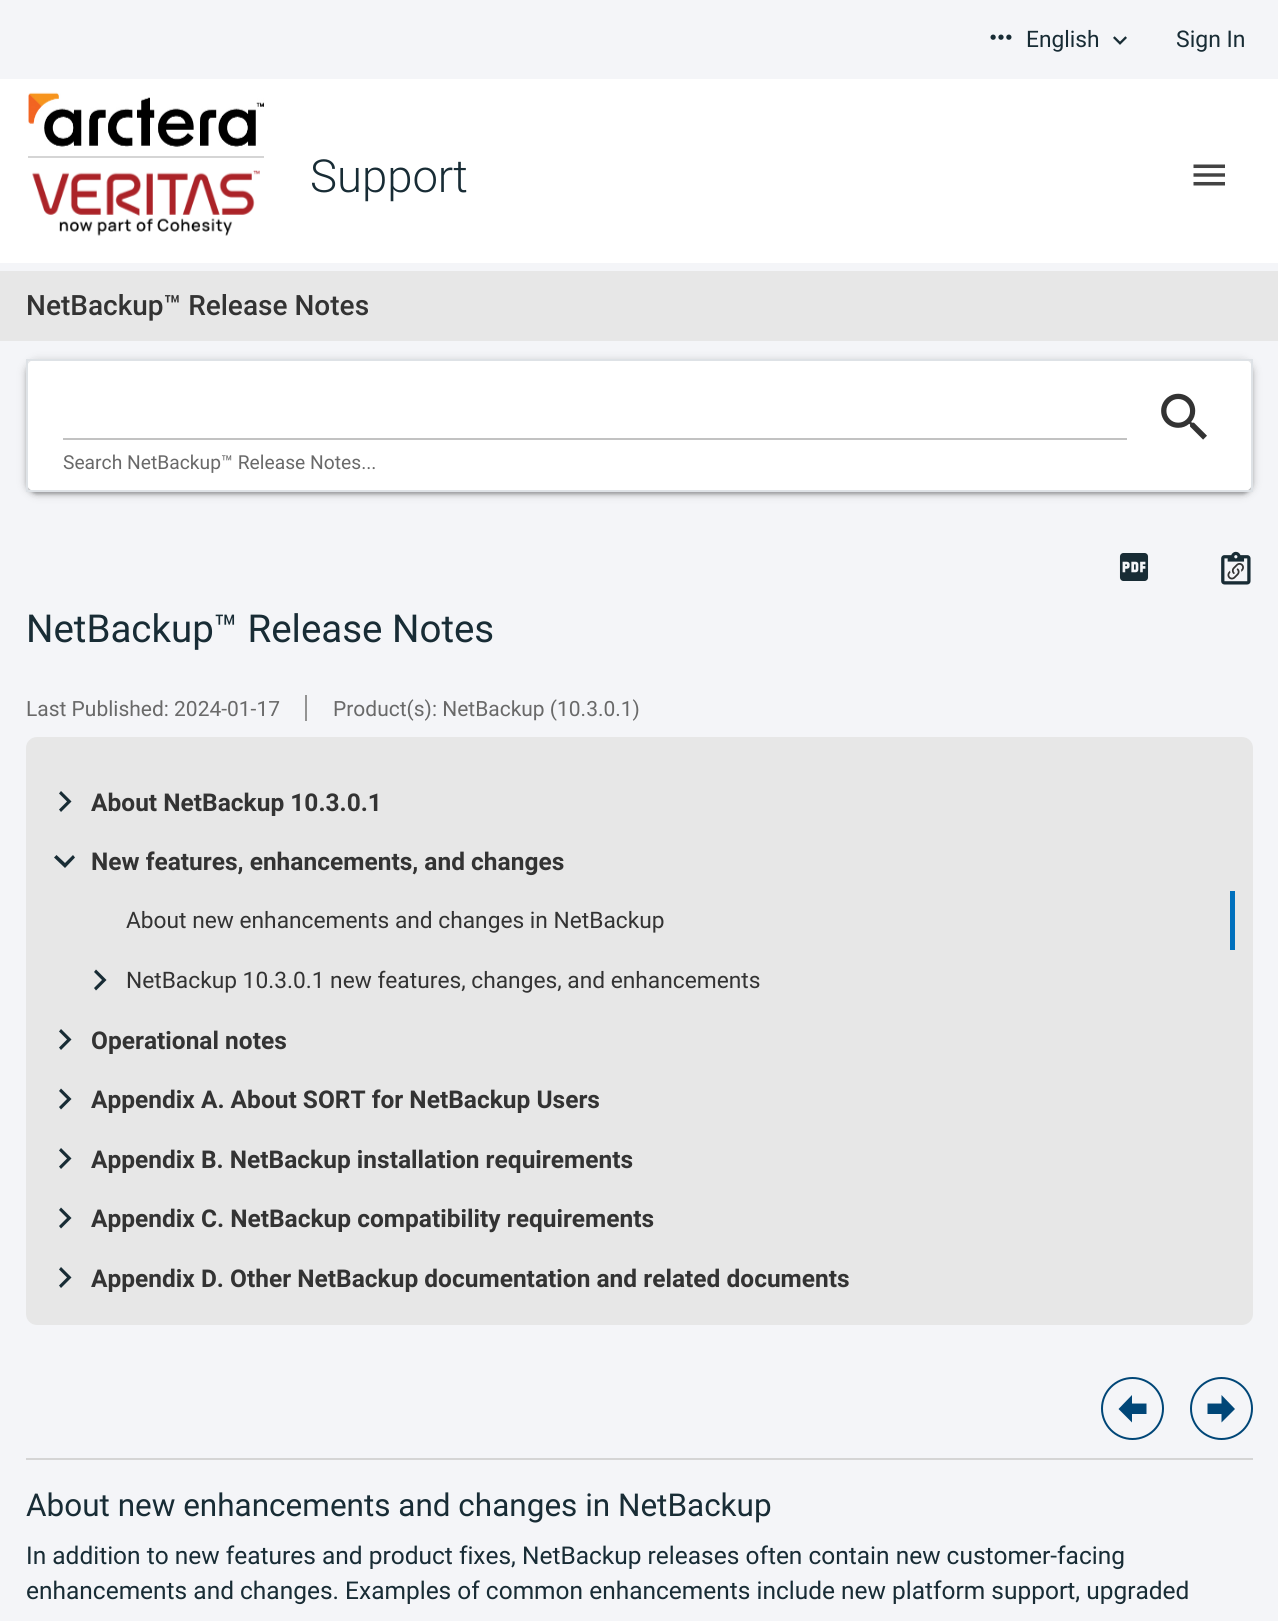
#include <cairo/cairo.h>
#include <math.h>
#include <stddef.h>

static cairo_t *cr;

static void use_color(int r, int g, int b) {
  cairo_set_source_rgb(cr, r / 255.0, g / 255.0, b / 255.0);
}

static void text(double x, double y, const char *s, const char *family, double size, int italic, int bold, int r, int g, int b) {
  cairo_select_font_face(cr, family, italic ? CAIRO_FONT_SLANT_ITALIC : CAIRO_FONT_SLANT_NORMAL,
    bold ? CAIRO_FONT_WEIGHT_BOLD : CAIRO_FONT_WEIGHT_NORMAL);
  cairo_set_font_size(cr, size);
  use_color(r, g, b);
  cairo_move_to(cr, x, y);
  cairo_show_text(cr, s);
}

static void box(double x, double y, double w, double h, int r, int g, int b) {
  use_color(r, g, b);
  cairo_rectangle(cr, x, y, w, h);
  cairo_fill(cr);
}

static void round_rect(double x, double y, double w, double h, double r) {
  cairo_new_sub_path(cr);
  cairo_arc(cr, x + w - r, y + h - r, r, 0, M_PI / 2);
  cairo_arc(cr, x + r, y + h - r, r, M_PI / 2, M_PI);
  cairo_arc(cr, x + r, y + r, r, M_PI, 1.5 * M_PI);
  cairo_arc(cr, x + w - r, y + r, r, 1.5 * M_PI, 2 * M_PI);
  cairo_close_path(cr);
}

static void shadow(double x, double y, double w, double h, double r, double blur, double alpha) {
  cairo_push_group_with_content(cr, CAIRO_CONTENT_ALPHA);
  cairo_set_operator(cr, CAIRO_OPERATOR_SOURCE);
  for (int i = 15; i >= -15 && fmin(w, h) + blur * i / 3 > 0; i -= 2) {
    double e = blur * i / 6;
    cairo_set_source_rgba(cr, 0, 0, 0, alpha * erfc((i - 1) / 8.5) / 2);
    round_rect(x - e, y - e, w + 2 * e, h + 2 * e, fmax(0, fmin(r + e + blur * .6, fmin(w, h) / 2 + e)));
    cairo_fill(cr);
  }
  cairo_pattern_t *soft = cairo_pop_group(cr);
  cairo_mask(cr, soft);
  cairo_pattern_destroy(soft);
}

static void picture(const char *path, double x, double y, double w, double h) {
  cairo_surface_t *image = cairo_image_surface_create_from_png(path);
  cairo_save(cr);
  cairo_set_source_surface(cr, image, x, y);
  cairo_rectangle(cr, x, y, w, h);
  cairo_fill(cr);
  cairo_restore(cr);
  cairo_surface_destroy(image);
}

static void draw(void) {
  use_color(244, 245, 248);
  cairo_paint(cr);
  picture("img_01.png", 990, 34, 22, 6);
  picture("img_02.png", 1113, 36, 14, 9);
  box(0, 79, 1278, 184, 255, 255, 255);
  picture("img_03.png", 28, 92, 236, 55);
  box(28, 156, 236, 2, 213, 213, 213);
  picture("img_04.png", 32, 170, 228, 66);
  picture("img_05.png", 1193, 164, 32, 22);
  box(0, 271, 1278, 70, 231, 231, 231);
  use_color(0, 0, 0);
  shadow(30, 368, 1220, 126, 7, 1, 0.12);
  shadow(26, 362, 1227, 133, 11, 2, 0.14);
  shadow(26, 361, 1227, 133, 11, 4.5, 0.2);
  use_color(255, 255, 255);
  round_rect(26, 359, 1227, 133, 11);
  cairo_fill(cr);
  cairo_rectangle(cr, 27, 360, 1225, 131);
  use_color(222, 226, 230);
  cairo_stroke(cr);
  box(63, 438, 1064, 2, 194, 194, 194);
  picture("img_06.png", 1161, 393, 46, 47);
  picture("img_07.png", 1119, 553, 30, 28);
  picture("img_08.png", 1221, 551, 30, 34);
  picture("img_09.png", 1227, 563, 17, 17);
  box(305, 695, 2, 26, 147, 147, 147);
  use_color(231, 231, 231);
  round_rect(26, 737, 1227, 588, 11);
  cairo_fill(cr);
  use_color(24, 44, 53);
  cairo_new_path(cr);
  cairo_move_to(cr, 59, 809.5);
  cairo_line_to(cr, 67, 801.5);
  cairo_line_to(cr, 59, 793.5);
  cairo_line_to(cr, 61, 791);
  cairo_line_to(cr, 71.5, 801.5);
  cairo_line_to(cr, 61, 812);
  cairo_close_path(cr);
  cairo_fill(cr);
  cairo_new_path(cr);
  cairo_move_to(cr, 56.5, 855);
  cairo_line_to(cr, 65, 863);
  cairo_line_to(cr, 73, 855);
  cairo_line_to(cr, 75, 857.5);
  cairo_line_to(cr, 65, 868);
  cairo_line_to(cr, 54, 857.5);
  cairo_close_path(cr);
  cairo_fill(cr);
  box(1230, 891, 5, 59, 0, 112, 189);
  use_color(24, 44, 53);
  cairo_new_path(cr);
  cairo_move_to(cr, 94, 988);
  cairo_line_to(cr, 102, 980);
  cairo_line_to(cr, 94, 972);
  cairo_line_to(cr, 96, 969.5);
  cairo_line_to(cr, 106.5, 980);
  cairo_line_to(cr, 96, 990.5);
  cairo_close_path(cr);
  cairo_fill(cr);
  cairo_new_path(cr);
  cairo_move_to(cr, 59, 1047.5);
  cairo_line_to(cr, 67, 1039.5);
  cairo_line_to(cr, 59, 1031.5);
  cairo_line_to(cr, 61, 1029);
  cairo_line_to(cr, 71.5, 1039.5);
  cairo_line_to(cr, 61, 1050);
  cairo_close_path(cr);
  cairo_fill(cr);
  cairo_new_path(cr);
  cairo_move_to(cr, 59, 1107);
  cairo_line_to(cr, 67, 1099);
  cairo_line_to(cr, 59, 1091);
  cairo_line_to(cr, 61, 1088.5);
  cairo_line_to(cr, 71.5, 1099);
  cairo_line_to(cr, 61, 1109.5);
  cairo_close_path(cr);
  cairo_fill(cr);
  cairo_new_path(cr);
  cairo_move_to(cr, 59, 1166.5);
  cairo_line_to(cr, 67, 1158.5);
  cairo_line_to(cr, 59, 1150.5);
  cairo_line_to(cr, 61, 1148);
  cairo_line_to(cr, 71.5, 1158.5);
  cairo_line_to(cr, 61, 1169);
  cairo_close_path(cr);
  cairo_fill(cr);
  cairo_new_path(cr);
  cairo_move_to(cr, 59, 1226);
  cairo_line_to(cr, 67, 1218);
  cairo_line_to(cr, 59, 1210);
  cairo_line_to(cr, 61, 1207.5);
  cairo_line_to(cr, 71.5, 1218);
  cairo_line_to(cr, 61, 1228.5);
  cairo_close_path(cr);
  cairo_fill(cr);
  cairo_new_path(cr);
  cairo_move_to(cr, 59, 1285.5);
  cairo_line_to(cr, 67, 1277.5);
  cairo_line_to(cr, 59, 1269.5);
  cairo_line_to(cr, 61, 1267);
  cairo_line_to(cr, 71.5, 1277.5);
  cairo_line_to(cr, 61, 1288);
  cairo_close_path(cr);
  cairo_fill(cr);
  box(26, 1458, 1227, 2, 213, 213, 213);
  cairo_arc(cr, 1132.5, 1408.5, 30.5, 0, 2 * M_PI);
  use_color(0, 70, 119);
  cairo_stroke(cr);
  cairo_new_path(cr);
  cairo_move_to(cr, 1146.5, 1403.5);
  cairo_line_to(cr, 1146.5, 1414);
  cairo_line_to(cr, 1132, 1414);
  cairo_line_to(cr, 1132, 1422.5);
  cairo_line_to(cr, 1118.5, 1409);
  cairo_line_to(cr, 1132, 1395);
  cairo_line_to(cr, 1132, 1403.5);
  cairo_close_path(cr);
  cairo_fill(cr);
  cairo_arc(cr, 1221.5, 1408.5, 30.5, 0, 2 * M_PI);
  cairo_stroke(cr);
  cairo_new_path(cr);
  cairo_move_to(cr, 1207.5, 1414);
  cairo_line_to(cr, 1207.5, 1403.5);
  cairo_line_to(cr, 1221.5, 1403.5);
  cairo_line_to(cr, 1221.5, 1395);
  cairo_line_to(cr, 1235, 1409);
  cairo_line_to(cr, 1221.5, 1422.5);
  cairo_line_to(cr, 1221.5, 1414);
  cairo_close_path(cr);
  cairo_fill(cr);
  text(1026, 47, "English", "Roboto", 22.75, 0, 0, 24, 44, 53);
  text(1176, 47, "Sign In", "Roboto", 23, 0, 0, 24, 44, 53);
  text(310, 192, "Support", "Roboto Light", 45.5, 0, 0, 24, 44, 53);
  text(26, 315, "NetBackup™ Release Notes", "Roboto Medium", 28, 0, 0, 51, 51, 51);
  text(63, 469, "Search NetBackup™ Release Notes...", "Roboto", 19.25, 0, 0, 105, 105, 105);
  text(26, 642, "NetBackup™ Release Notes", "Roboto", 38.5, 0, 0, 24, 44, 53);
  text(26, 716, "Last Published: 2024-01-17", "Roboto", 21, 0, 0, 105, 105, 105);
  text(333, 716, "Product(s): NetBackup (10.3.0.1)", "Roboto", 21, 0, 0, 105, 105, 105);
  text(91, 811, "About NetBackup 10.3.0.1", "Roboto", 24.5, 0, 1, 51, 51, 51);
  text(91, 870, "New features, enhancements, and changes", "Roboto", 24.5, 0, 1, 51, 51, 51);
  text(126, 928, "About new enhancements and changes in NetBackup", "Roboto", 22.75, 0, 0, 51, 51, 51);
  text(126, 988, "NetBackup 10.3.0.1 new features, changes, and enhancements", "Roboto", 22.75, 0, 0, 51, 51, 51);
  text(91, 1049, "Operational notes", "Roboto", 24.5, 0, 1, 51, 51, 51);
  text(91, 1108, "Appendix A. About SORT for NetBackup Users", "Roboto", 24.5, 0, 1, 51, 51, 51);
  text(91, 1168, "Appendix B. NetBackup installation requirements", "Roboto", 24.5, 0, 1, 51, 51, 51);
  text(91, 1227, "Appendix C. NetBackup compatibility requirements", "Roboto", 24.5, 0, 1, 51, 51, 51);
  text(91, 1287, "Appendix D. Other NetBackup documentation and related documents", "Roboto", 24.5, 0, 1, 51, 51, 51);
  text(26, 1516, "About new enhancements and changes in NetBackup", "Roboto", 31.5, 0, 0, 24, 44, 53);
  text(26, 1564, "In addition to new features and product fixes, NetBackup releases often contain new customer-facing", "Roboto", 24.5, 0, 0, 24, 44, 53);
  text(26, 1599, "enhancements and changes. Examples of common enhancements include new platform support, upgraded", "Roboto", 24.5, 0, 0, 24, 44, 53);
}

int main(void) {
  cairo_surface_t *surface = cairo_image_surface_create(CAIRO_FORMAT_RGB24, 1278, 1621);
  cr = cairo_create(surface);
  cairo_font_options_t *options = cairo_font_options_create();
  cairo_font_options_set_hint_metrics(options, CAIRO_HINT_METRICS_OFF);
  cairo_font_options_set_hint_style(options, CAIRO_HINT_STYLE_NONE);
  cairo_set_font_options(cr, options);
  cairo_set_miter_limit(cr, 4);
  draw();
  cairo_surface_write_to_png(surface, "out.png");
  cairo_font_options_destroy(options);
  cairo_destroy(cr);
  cairo_surface_destroy(surface);
  return 0;
}
